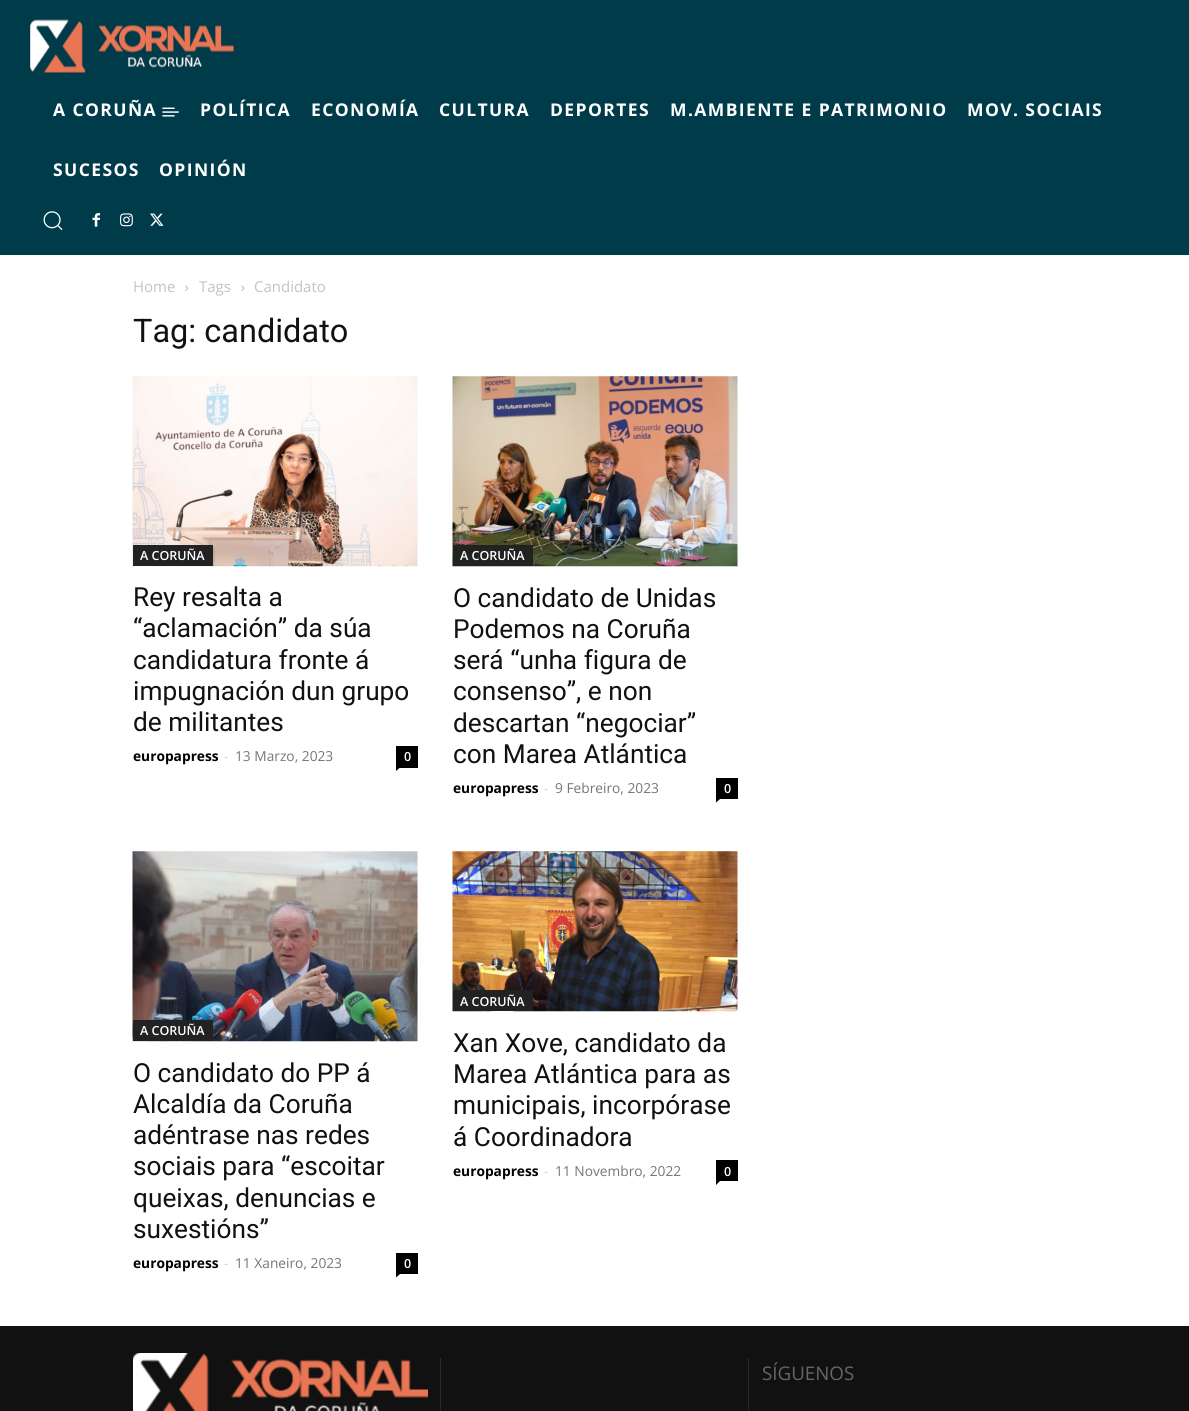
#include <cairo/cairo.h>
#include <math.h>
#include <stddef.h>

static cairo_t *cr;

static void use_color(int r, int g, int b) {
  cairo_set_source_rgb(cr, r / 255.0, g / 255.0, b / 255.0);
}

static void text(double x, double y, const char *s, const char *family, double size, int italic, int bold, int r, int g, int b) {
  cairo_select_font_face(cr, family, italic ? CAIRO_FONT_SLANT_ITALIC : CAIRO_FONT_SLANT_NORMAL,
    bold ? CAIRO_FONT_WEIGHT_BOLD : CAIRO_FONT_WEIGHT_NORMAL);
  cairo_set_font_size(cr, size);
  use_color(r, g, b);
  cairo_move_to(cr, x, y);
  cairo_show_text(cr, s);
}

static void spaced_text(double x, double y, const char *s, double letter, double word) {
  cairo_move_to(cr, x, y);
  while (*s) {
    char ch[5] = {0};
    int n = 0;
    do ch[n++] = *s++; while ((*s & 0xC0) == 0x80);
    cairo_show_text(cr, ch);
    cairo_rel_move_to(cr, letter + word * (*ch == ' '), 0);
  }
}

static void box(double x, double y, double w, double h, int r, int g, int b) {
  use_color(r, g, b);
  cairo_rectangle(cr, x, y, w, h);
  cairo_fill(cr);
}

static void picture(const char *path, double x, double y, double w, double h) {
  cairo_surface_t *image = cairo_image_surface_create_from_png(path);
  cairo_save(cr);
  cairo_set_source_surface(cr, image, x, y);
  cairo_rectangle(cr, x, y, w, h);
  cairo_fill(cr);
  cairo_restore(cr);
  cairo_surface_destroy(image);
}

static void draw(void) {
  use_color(255, 255, 255);
  cairo_paint(cr);
  box(0, 0, 1189, 255, 0, 59, 73);
  picture("img_01.png", 30, 19, 204, 54);
  picture("img_02.png", 162, 107, 17, 10);
  picture("img_03.png", 43, 211, 20, 19);
  picture("img_04.png", 92, 213, 8, 14);
  picture("img_05.png", 120, 213, 13, 14);
  picture("img_06.png", 150, 213, 14, 13);
  picture("img_07.png", 185, 285, 4, 6);
  picture("img_08.png", 241, 285, 4, 6);
  picture("img_09.png", 132, 376, 286, 191);
  box(133, 545, 80, 21, 34, 34, 34);
  box(396, 746, 22, 22, 0, 0, 0);
  cairo_new_path(cr);
  cairo_move_to(cr, 396, 767.5);
  cairo_line_to(cr, 400, 767.5);
  cairo_line_to(cr, 396, 771);
  cairo_close_path(cr);
  cairo_fill(cr);
  picture("img_10.png", 452, 376, 286, 191);
  box(453, 545, 80, 21, 34, 34, 34);
  box(716, 778, 22, 21, 0, 0, 0);
  cairo_new_path(cr);
  cairo_move_to(cr, 716, 799);
  cairo_line_to(cr, 720, 799);
  cairo_line_to(cr, 716, 802.5);
  cairo_close_path(cr);
  cairo_fill(cr);
  picture("img_11.png", 132, 851, 286, 191);
  box(133, 1020, 80, 21, 34, 34, 34);
  box(396, 1253, 22, 21, 0, 0, 0);
  cairo_new_path(cr);
  cairo_move_to(cr, 396, 1274);
  cairo_line_to(cr, 400, 1274);
  cairo_line_to(cr, 396, 1277.5);
  cairo_close_path(cr);
  cairo_fill(cr);
  picture("img_12.png", 452, 851, 286, 161);
  box(453, 990, 80, 21, 34, 34, 34);
  box(716, 1160, 22, 21, 0, 0, 0);
  cairo_new_path(cr);
  cairo_move_to(cr, 716, 1181);
  cairo_line_to(cr, 720, 1181);
  cairo_line_to(cr, 716, 1185);
  cairo_close_path(cr);
  cairo_fill(cr);
  box(0, 1326, 1189, 85, 17, 17, 17);
  box(440, 1358, 1, 53, 41, 41, 41);
  picture("img_13.png", 133, 1353, 295, 58);
  box(748, 1358, 1, 53, 41, 41, 41);
  cairo_select_font_face(cr, "Open Sans", CAIRO_FONT_SLANT_NORMAL, CAIRO_FONT_WEIGHT_BOLD);
  cairo_set_font_size(cr, 17.5);
  use_color(255, 255, 255);
  spaced_text(53, 116, "A CORUÑA", 1.4, 0);
  spaced_text(200, 116, "POLÍTICA", 1.4, 0);
  spaced_text(311, 116, "ECONOMÍA", 1.4, 0);
  spaced_text(439, 116, "CULTURA", 1.4, 0);
  spaced_text(550, 116, "DEPORTES", 1.4, 0);
  spaced_text(670, 116, "M.AMBIENTE E PATRIMONIO", 1.4, 0);
  spaced_text(967, 116, "MOV. SOCIAIS", 1.4, 0);
  spaced_text(53, 176, "SUCESOS", 1.4, 0);
  spaced_text(159, 176, "OPINIÓN", 1.4, 0);
  text(133, 292, "Home", "Open Sans", 15, 0, 0, 195, 195, 195);
  text(199, 292, "Tags", "Open Sans", 15, 0, 0, 195, 195, 195);
  text(254, 292, "Candidato", "Open Sans", 15, 0, 0, 195, 195, 195);
  text(133, 342, "Tag: candidato", "Roboto", 32.5, 0, 0, 17, 17, 17);
  text(140, 560, "A CORUÑA", "Open Sans SemiBold", 12.5, 0, 0, 255, 255, 255);
  text(133, 606, "Rey resalta a", "Roboto", 26.25, 0, 0, 17, 17, 17);
  text(133, 637, "“aclamación” da súa", "Roboto", 26.25, 0, 0, 17, 17, 17);
  text(133, 669, "candidatura fronte á", "Roboto", 26.25, 0, 0, 17, 17, 17);
  text(133, 700, "impugnación dun grupo", "Roboto", 26.25, 0, 0, 17, 17, 17);
  text(133, 731, "de militantes", "Roboto", 26.25, 0, 0, 17, 17, 17);
  text(133, 761, "europapress", "Open Sans", 13.75, 0, 1, 0, 0, 0);
  text(224, 761, "-", "Open Sans", 13.75, 0, 0, 204, 204, 204);
  text(235, 761, "13 Marzo, 2023", "Open Sans", 13.75, 0, 0, 118, 118, 118);
  text(404, 761, "0", "Open Sans SemiBold", 12.5, 0, 0, 255, 255, 255);
  text(460, 560, "A CORUÑA", "Open Sans SemiBold", 12.5, 0, 0, 255, 255, 255);
  text(453, 607, "O candidato de Unidas", "Roboto", 26.25, 0, 0, 17, 17, 17);
  text(453, 638, "Podemos na Coruña", "Roboto", 26.25, 0, 0, 17, 17, 17);
  text(453, 669, "será “unha figura de", "Roboto", 26.25, 0, 0, 17, 17, 17);
  text(453, 700, "consenso”, e non", "Roboto", 26.25, 0, 0, 17, 17, 17);
  text(453, 732, "descartan “negociar”", "Roboto", 26.25, 0, 0, 17, 17, 17);
  text(453, 763, "con Marea Atlántica", "Roboto", 26.25, 0, 0, 17, 17, 17);
  text(453, 793, "europapress", "Open Sans", 13.75, 0, 1, 0, 0, 0);
  text(544, 793, "-", "Open Sans", 13.75, 0, 0, 204, 204, 204);
  text(555, 793, "9 Febreiro, 2023", "Open Sans", 13.75, 0, 0, 118, 118, 118);
  text(724, 793, "0", "Open Sans SemiBold", 12.5, 0, 0, 255, 255, 255);
  text(140, 1035, "A CORUÑA", "Open Sans SemiBold", 12.5, 0, 0, 255, 255, 255);
  text(133, 1082, "O candidato do PP á", "Roboto", 26.25, 0, 0, 17, 17, 17);
  text(133, 1113, "Alcaldía da Coruña", "Roboto", 26.25, 0, 0, 17, 17, 17);
  text(133, 1144, "adéntrase nas redes", "Roboto", 26.25, 0, 0, 17, 17, 17);
  text(133, 1175, "sociais para “escoitar", "Roboto", 26.25, 0, 0, 17, 17, 17);
  text(133, 1207, "queixas, denuncias e", "Roboto", 26.25, 0, 0, 17, 17, 17);
  text(133, 1238, "suxestións”", "Roboto", 26.25, 0, 0, 17, 17, 17);
  text(133, 1268, "europapress", "Open Sans", 13.75, 0, 1, 0, 0, 0);
  text(224, 1268, "-", "Open Sans", 13.75, 0, 0, 204, 204, 204);
  text(235, 1268, "11 Xaneiro, 2023", "Open Sans", 13.75, 0, 0, 118, 118, 118);
  text(404, 1268, "0", "Open Sans SemiBold", 12.5, 0, 0, 255, 255, 255);
  text(460, 1006, "A CORUÑA", "Open Sans SemiBold", 12.5, 0, 0, 255, 255, 255);
  text(453, 1052, "Xan Xove, candidato da", "Roboto", 26.25, 0, 0, 17, 17, 17);
  text(453, 1083, "Marea Atlántica para as", "Roboto", 26.25, 0, 0, 17, 17, 17);
  text(453, 1114, "municipais, incorpórase", "Roboto", 26.25, 0, 0, 17, 17, 17);
  text(453, 1146, "á Coordinadora", "Roboto", 26.25, 0, 0, 17, 17, 17);
  text(453, 1176, "europapress", "Open Sans", 13.75, 0, 1, 0, 0, 0);
  text(544, 1176, "-", "Open Sans", 13.75, 0, 0, 204, 204, 204);
  text(555, 1176, "11 Novembro, 2022", "Open Sans", 13.75, 0, 0, 118, 118, 118);
  text(724, 1176, "0", "Open Sans SemiBold", 12.5, 0, 0, 255, 255, 255);
  text(762, 1380, "SÍGUENOS", "Open Sans", 18.75, 0, 0, 102, 102, 102);
}

int main(void) {
  cairo_surface_t *surface = cairo_image_surface_create(CAIRO_FORMAT_RGB24, 1189, 1411);
  cr = cairo_create(surface);
  cairo_font_options_t *options = cairo_font_options_create();
  cairo_font_options_set_hint_metrics(options, CAIRO_HINT_METRICS_OFF);
  cairo_font_options_set_hint_style(options, CAIRO_HINT_STYLE_NONE);
  cairo_set_font_options(cr, options);
  cairo_set_miter_limit(cr, 4);
  draw();
  cairo_surface_write_to_png(surface, "out.png");
  cairo_font_options_destroy(options);
  cairo_destroy(cr);
  cairo_surface_destroy(surface);
  return 0;
}
